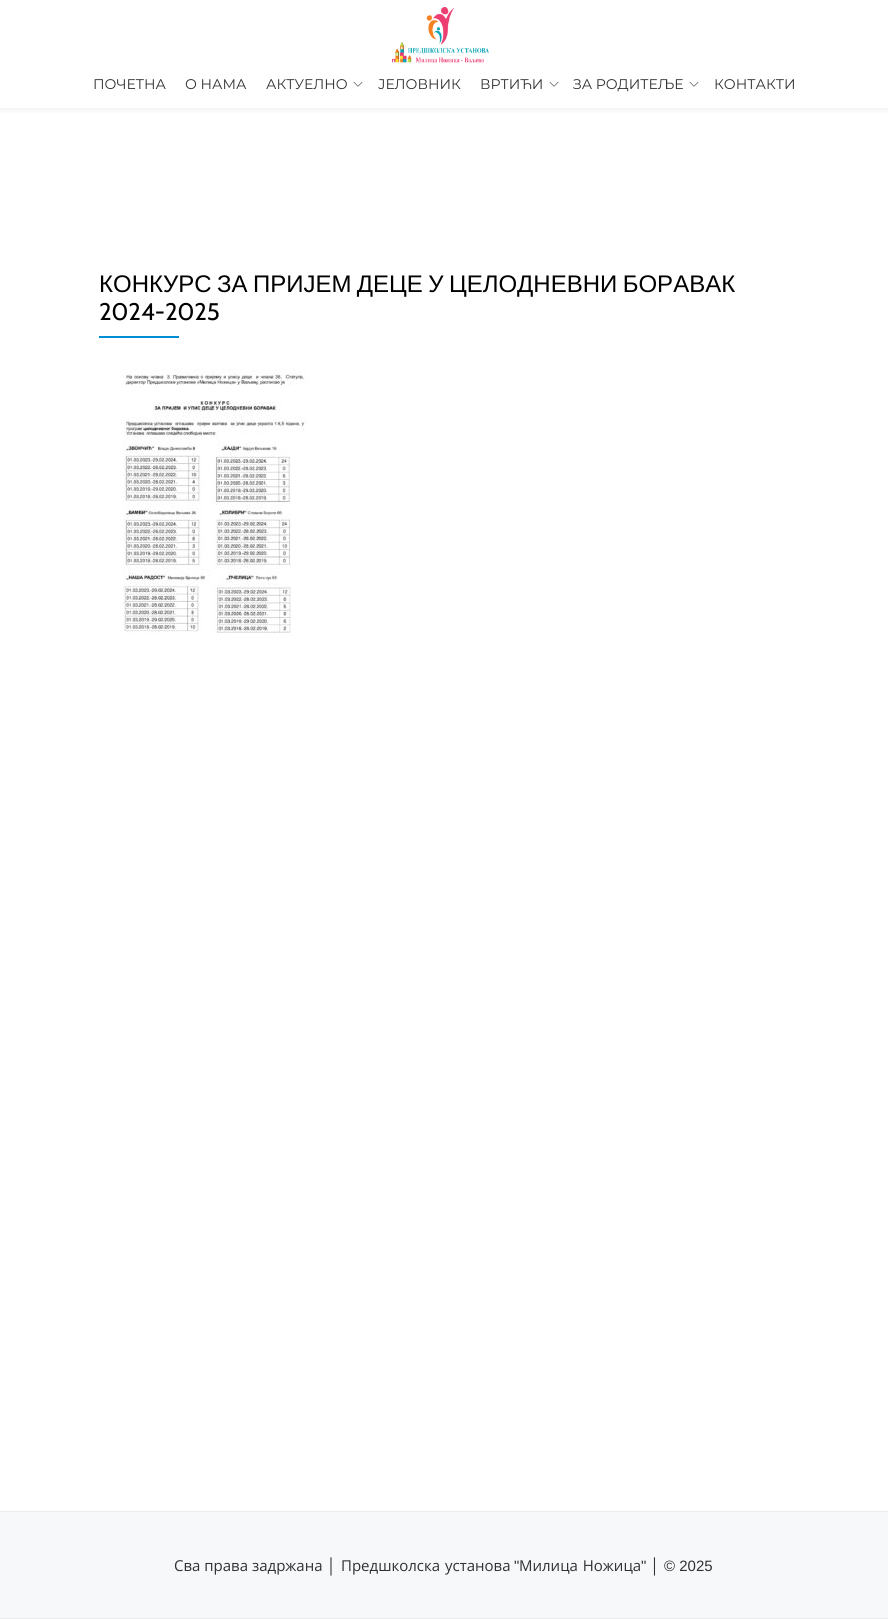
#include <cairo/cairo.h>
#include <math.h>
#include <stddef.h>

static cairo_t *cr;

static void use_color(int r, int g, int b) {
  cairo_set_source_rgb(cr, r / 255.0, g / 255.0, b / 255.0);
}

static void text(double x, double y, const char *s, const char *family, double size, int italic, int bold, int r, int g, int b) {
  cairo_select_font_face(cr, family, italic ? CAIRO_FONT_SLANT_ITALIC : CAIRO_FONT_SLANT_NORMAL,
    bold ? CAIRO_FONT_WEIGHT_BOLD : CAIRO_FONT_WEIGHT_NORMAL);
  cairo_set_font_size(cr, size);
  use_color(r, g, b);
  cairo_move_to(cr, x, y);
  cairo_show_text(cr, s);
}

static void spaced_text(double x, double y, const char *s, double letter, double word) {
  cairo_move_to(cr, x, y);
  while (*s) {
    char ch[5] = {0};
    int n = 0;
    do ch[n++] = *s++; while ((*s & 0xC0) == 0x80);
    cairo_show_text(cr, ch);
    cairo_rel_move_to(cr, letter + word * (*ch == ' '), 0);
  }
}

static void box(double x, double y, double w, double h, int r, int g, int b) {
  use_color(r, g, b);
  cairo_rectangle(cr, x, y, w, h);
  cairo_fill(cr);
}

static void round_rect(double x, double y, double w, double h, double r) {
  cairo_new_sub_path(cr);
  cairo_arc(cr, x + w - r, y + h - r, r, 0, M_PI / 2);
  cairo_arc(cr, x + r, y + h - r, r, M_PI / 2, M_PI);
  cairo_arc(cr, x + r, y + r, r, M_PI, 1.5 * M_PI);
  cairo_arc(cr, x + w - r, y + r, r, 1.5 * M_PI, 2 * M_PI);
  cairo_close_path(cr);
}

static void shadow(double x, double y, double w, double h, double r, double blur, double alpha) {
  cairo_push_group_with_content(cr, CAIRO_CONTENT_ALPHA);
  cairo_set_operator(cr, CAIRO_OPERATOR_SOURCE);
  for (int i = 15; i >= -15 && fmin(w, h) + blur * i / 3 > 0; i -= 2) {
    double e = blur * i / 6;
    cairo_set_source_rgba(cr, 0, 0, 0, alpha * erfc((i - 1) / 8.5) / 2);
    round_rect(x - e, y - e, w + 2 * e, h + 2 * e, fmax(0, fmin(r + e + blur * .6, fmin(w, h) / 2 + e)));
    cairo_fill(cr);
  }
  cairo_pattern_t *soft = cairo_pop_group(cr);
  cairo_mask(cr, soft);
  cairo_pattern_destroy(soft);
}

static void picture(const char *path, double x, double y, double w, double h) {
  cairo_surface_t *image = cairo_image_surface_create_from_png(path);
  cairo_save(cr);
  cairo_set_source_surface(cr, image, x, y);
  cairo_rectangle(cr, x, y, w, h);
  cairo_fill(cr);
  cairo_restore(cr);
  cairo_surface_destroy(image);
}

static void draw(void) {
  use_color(255, 255, 255);
  cairo_paint(cr);
  cairo_save(cr);
  cairo_rectangle(cr, 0, 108, 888, 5);
  cairo_clip(cr);
  use_color(50, 50, 50);
  shadow(0, 2, 888, 108, 0, 4, 0.08);
  cairo_restore(cr);
  picture("img_01.png", 392, 7, 97, 56);
  picture("img_02.png", 353, 81, 10, 6);
  picture("img_02.png", 549, 81, 10, 6);
  picture("img_02.png", 689, 81, 10, 6);
  box(99, 336, 80, 2, 0, 142, 214);
  picture("img_03.png", 123, 369, 184, 264);
  box(0, 1512, 888, 106, 247, 248, 250);
  box(0, 1511, 888, 1, 234, 235, 236);
  box(0, 1618, 888, 1, 234, 235, 236);
  text(93, 89, "ПОЧЕТНА", "Montserrat", 14, 0, 0, 49, 49, 49);
  text(185, 89, "О НАМА", "Montserrat", 14, 0, 0, 49, 49, 49);
  text(266, 89, "АКТУЕЛНО", "Montserrat", 14, 0, 0, 49, 49, 49);
  text(378, 89, "ЈЕЛОВНИК", "Montserrat", 14, 0, 0, 49, 49, 49);
  text(480, 89, "ВРТИЋИ", "Montserrat", 14, 0, 0, 49, 49, 49);
  text(573, 89, "ЗА РОДИТЕЉЕ", "Montserrat", 14, 0, 0, 49, 49, 49);
  text(714, 89, "КОНТАКТИ", "Montserrat", 14, 0, 0, 49, 49, 49);
  cairo_select_font_face(cr, "Liberation Sans", CAIRO_FONT_SLANT_NORMAL, CAIRO_FONT_WEIGHT_NORMAL);
  cairo_set_font_size(cr, 24);
  use_color(0, 0, 0);
  spaced_text(99, 292, "КОНКУРС ЗА ПРИЈЕМ ДЕЦЕ У ЦЕЛОДНЕВНИ БОРАВАК", 0, -1.25);
  text(99, 320, "2024-2025", "Cabin", 24, 0, 0, 0, 0, 0);
  text(174, 1571, "Сва права задржана", "Open Sans", 15, 0, 0, 49, 49, 49);
  text(327, 1571, "│", "Liberation Sans", 15, 0, 0, 49, 49, 49);
  cairo_select_font_face(cr, "Open Sans", CAIRO_FONT_SLANT_NORMAL, CAIRO_FONT_WEIGHT_NORMAL);
  spaced_text(341, 1571, "Предшколска установа", 0, 1);
  text(514, 1571, "\"", "Liberation Sans", 15, 0, 0, 49, 49, 49);
  cairo_select_font_face(cr, "Open Sans", CAIRO_FONT_SLANT_NORMAL, CAIRO_FONT_WEIGHT_NORMAL);
  spaced_text(519, 1571, "Милица Ножица", 0, 1);
  text(641, 1571, "\" │ © 2025", "Liberation Sans", 15, 0, 0, 49, 49, 49);
}

int main(void) {
  cairo_surface_t *surface = cairo_image_surface_create(CAIRO_FORMAT_RGB24, 888, 1619);
  cr = cairo_create(surface);
  cairo_font_options_t *options = cairo_font_options_create();
  cairo_font_options_set_hint_metrics(options, CAIRO_HINT_METRICS_OFF);
  cairo_font_options_set_hint_style(options, CAIRO_HINT_STYLE_NONE);
  cairo_set_font_options(cr, options);
  cairo_set_miter_limit(cr, 4);
  draw();
  cairo_surface_write_to_png(surface, "out.png");
  cairo_font_options_destroy(options);
  cairo_destroy(cr);
  cairo_surface_destroy(surface);
  return 0;
}
